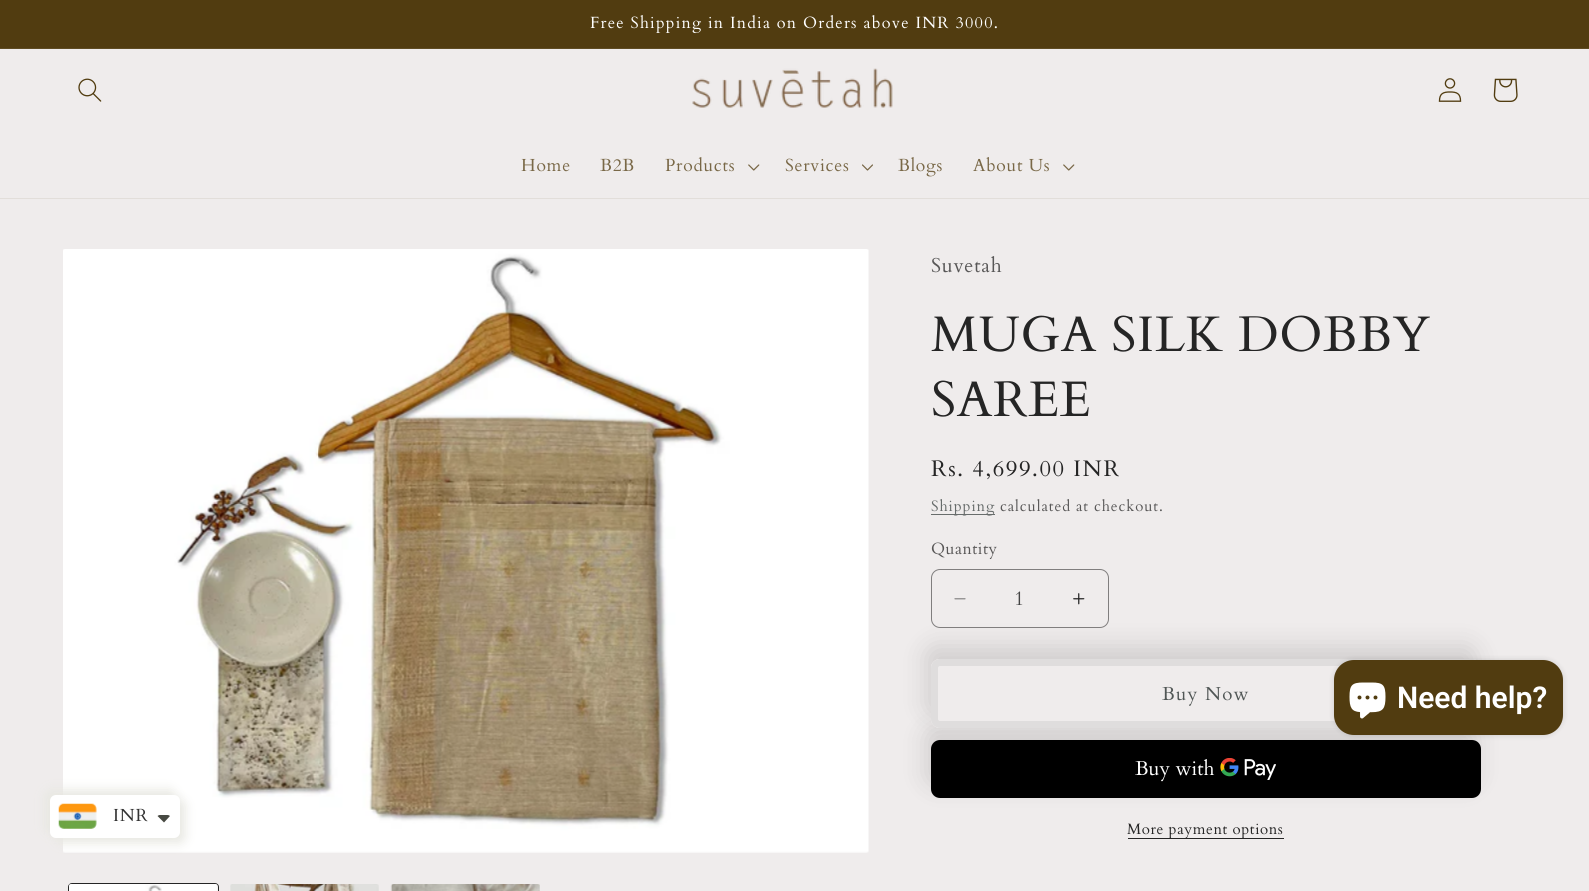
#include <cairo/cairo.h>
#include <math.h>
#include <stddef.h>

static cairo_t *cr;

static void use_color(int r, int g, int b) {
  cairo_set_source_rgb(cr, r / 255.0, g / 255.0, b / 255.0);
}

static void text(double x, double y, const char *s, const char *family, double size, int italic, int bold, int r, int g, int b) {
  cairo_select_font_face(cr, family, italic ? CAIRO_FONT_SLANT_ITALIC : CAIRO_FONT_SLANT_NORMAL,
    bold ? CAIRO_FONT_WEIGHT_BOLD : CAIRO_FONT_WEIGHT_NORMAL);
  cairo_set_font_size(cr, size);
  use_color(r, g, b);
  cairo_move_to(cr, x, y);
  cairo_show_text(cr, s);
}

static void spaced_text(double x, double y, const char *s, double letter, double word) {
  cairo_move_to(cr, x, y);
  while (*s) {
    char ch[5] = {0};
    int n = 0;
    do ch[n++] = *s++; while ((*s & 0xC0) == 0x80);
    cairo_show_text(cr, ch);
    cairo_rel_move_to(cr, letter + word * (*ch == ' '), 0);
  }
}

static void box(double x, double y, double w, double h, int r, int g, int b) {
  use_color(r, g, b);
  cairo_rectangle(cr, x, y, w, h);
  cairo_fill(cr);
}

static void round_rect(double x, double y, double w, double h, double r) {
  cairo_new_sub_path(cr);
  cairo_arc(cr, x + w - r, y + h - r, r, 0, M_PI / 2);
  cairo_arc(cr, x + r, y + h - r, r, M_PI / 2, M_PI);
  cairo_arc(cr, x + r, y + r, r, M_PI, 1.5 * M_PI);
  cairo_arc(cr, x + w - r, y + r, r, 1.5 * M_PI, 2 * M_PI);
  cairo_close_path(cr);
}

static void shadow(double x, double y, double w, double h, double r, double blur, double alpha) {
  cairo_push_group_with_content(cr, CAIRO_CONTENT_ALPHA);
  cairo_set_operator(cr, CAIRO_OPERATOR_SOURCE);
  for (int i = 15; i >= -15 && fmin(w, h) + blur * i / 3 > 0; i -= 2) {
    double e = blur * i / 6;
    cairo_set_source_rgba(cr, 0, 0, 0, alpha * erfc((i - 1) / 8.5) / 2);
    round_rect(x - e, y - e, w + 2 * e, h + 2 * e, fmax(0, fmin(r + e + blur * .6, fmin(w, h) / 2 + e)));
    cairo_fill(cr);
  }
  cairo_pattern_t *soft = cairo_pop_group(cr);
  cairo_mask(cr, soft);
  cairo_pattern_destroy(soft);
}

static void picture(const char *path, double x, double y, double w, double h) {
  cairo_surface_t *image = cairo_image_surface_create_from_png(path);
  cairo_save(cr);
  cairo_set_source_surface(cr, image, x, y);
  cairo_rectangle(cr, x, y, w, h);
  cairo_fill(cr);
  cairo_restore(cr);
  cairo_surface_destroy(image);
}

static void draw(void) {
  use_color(239, 236, 236);
  cairo_paint(cr);
  box(0, 0, 1589, 48, 81, 60, 16);
  box(0, 48, 1589, 1, 95, 76, 35);
  box(0, 198, 1589, 1, 226, 222, 218);
  picture("img_01.png", 78, 78, 24, 24);
  picture("img_02.png", 692, 68, 201, 40);
  picture("img_03.png", 1438, 78, 24, 24);
  picture("img_04.png", 1493, 78, 25, 24);
  picture("img_05.png", 748, 164, 12, 7);
  picture("img_06.png", 862, 164, 11, 7);
  picture("img_05.png", 1063, 164, 12, 7);
  picture("img_07.png", 63, 249, 806, 604);
  round_rect(68.5, 883.5, 150, 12, 3.5);
  use_color(37, 37, 37);
  cairo_set_line_width(cr, 1);
  cairo_stroke(cr);
  picture("img_08.png", 69, 884, 149, 7);
  picture("img_09.png", 230, 884, 149, 7);
  picture("img_10.png", 390, 884, 150, 7);
  box(931, 514, 64, 1, 104, 109, 108);
  picture("img_11.png", 954, 598, 12, 2);
  picture("img_12.png", 1073, 593, 12, 12);
  use_color(37, 37, 37);
  shadow(926, 646, 550, 69, 9, 12.5, 0.15);
  round_rect(931.5, 569.5, 177, 58, 8.5);
  use_color(128, 126, 126);
  cairo_stroke(cr);
  use_color(37, 37, 37);
  shadow(926, 728, 550, 57, 9, 12.5, 0.15);
  use_color(239, 236, 236);
  round_rect(931, 659, 550, 69, 9);
  cairo_fill(cr);
  round_rect(934, 662, 544, 63, 6);
  cairo_set_line_width(cr, 6);
  cairo_stroke(cr);
  round_rect(934.5, 662.5, 543, 62, 5.5);
  use_color(223, 221, 221);
  cairo_set_line_width(cr, 7);
  cairo_stroke(cr);
  use_color(0, 0, 0);
  round_rect(931, 740, 550, 58, 9);
  cairo_fill(cr);
  picture("img_13.png", 1220, 758, 56, 22);
  box(1128, 838, 156, 1, 37, 37, 37);
  use_color(0, 0, 0);
  shadow(1334, 660, 229, 75, 20, 3, 0.15);
  use_color(81, 60, 16);
  round_rect(1334, 660, 229, 75, 20);
  cairo_fill(cr);
  picture("img_14.png", 1349, 682, 37, 37);
  use_color(232, 232, 226);
  shadow(45, 790, 130, 43, 6, 5.5, 1);
  shadow(55, 800, 130, 43, 6, 5.5, 1);
  use_color(255, 255, 255);
  round_rect(50, 795, 130, 43, 6);
  cairo_fill(cr);
  picture("img_15.png", 58, 803, 39, 26);
  use_color(71, 73, 66);
  cairo_new_path(cr);
  cairo_move_to(cr, 160, 815);
  cairo_curve_to(cr, 159, 815, 158, 815.5, 157.5, 816);
  cairo_line_to(cr, 164, 822.5);
  cairo_line_to(cr, 170, 816);
  cairo_curve_to(cr, 169.5, 815.5, 168.5, 815, 167.5, 815);
  cairo_close_path(cr);
  cairo_fill(cr);
  cairo_select_font_face(cr, "Cardo", CAIRO_FONT_SLANT_NORMAL, CAIRO_FONT_WEIGHT_NORMAL);
  cairo_set_font_size(cr, 16.25);
  use_color(255, 255, 255);
  spaced_text(590, 28, "Free Shipping in India on Orders above INR 3000.", 1.25, 0);
  cairo_set_font_size(cr, 17.5);
  use_color(121, 104, 71);
  spaced_text(521, 171, "Home", 0.75, 0);
  spaced_text(600, 171, "B2B", 0.75, 0);
  spaced_text(665, 171, "Products", 0.75, 0);
  spaced_text(785, 171, "Services", 0.75, 0);
  spaced_text(898, 171, "Blogs", 0.75, 0);
  spaced_text(973, 171, "About Us", 0.75, 0);
  cairo_set_font_size(cr, 20);
  use_color(88, 87, 87);
  spaced_text(931, 272, "Suvetah", 0.75, 0);
  cairo_set_font_size(cr, 50);
  use_color(37, 37, 37);
  spaced_text(931, 351, "MUGA SILK DOBBY", 0.75, 0);
  spaced_text(931, 416, "SAREE", 0.75, 0);
  cairo_set_font_size(cr, 22.5);
  spaced_text(931, 476, "Rs. 4,699.00 INR", 1.6, 0);
  cairo_set_font_size(cr, 15);
  use_color(103, 108, 107);
  spaced_text(931, 511, "Shipping", 0.9, 0);
  use_color(88, 87, 87);
  spaced_text(1000, 511, "calculated at checkout.", 0.9, 0);
  cairo_set_font_size(cr, 16.25);
  spaced_text(931, 554, "Quantity", 0.5, 0);
  text(1014, 605, "1", "Cardo", 20, 0, 0, 67, 67, 67);
  cairo_set_font_size(cr, 18.75);
  use_color(80, 86, 85);
  spaced_text(1162, 700, "Buy Now", 1.25, 0);
  text(1135, 775, "Buy with", "Cardo", 20, 0, 0, 255, 255, 255);
  cairo_set_font_size(cr, 15);
  use_color(37, 37, 37);
  spaced_text(1127, 834, "More payment options", 0.6, 0);
  text(1397, 708, "Need help?", "Roboto SemiBold", 30, 0, 0, 255, 255, 255);
  cairo_select_font_face(cr, "Cardo", CAIRO_FONT_SLANT_NORMAL, CAIRO_FONT_WEIGHT_NORMAL);
  cairo_set_font_size(cr, 17.5);
  use_color(51, 51, 51);
  spaced_text(113, 821, "INR", 0.75, 0);
}

int main(void) {
  cairo_surface_t *surface = cairo_image_surface_create(CAIRO_FORMAT_RGB24, 1589, 891);
  cr = cairo_create(surface);
  cairo_font_options_t *options = cairo_font_options_create();
  cairo_font_options_set_hint_metrics(options, CAIRO_HINT_METRICS_OFF);
  cairo_font_options_set_hint_style(options, CAIRO_HINT_STYLE_NONE);
  cairo_set_font_options(cr, options);
  cairo_set_miter_limit(cr, 4);
  draw();
  cairo_surface_write_to_png(surface, "out.png");
  cairo_font_options_destroy(options);
  cairo_destroy(cr);
  cairo_surface_destroy(surface);
  return 0;
}
